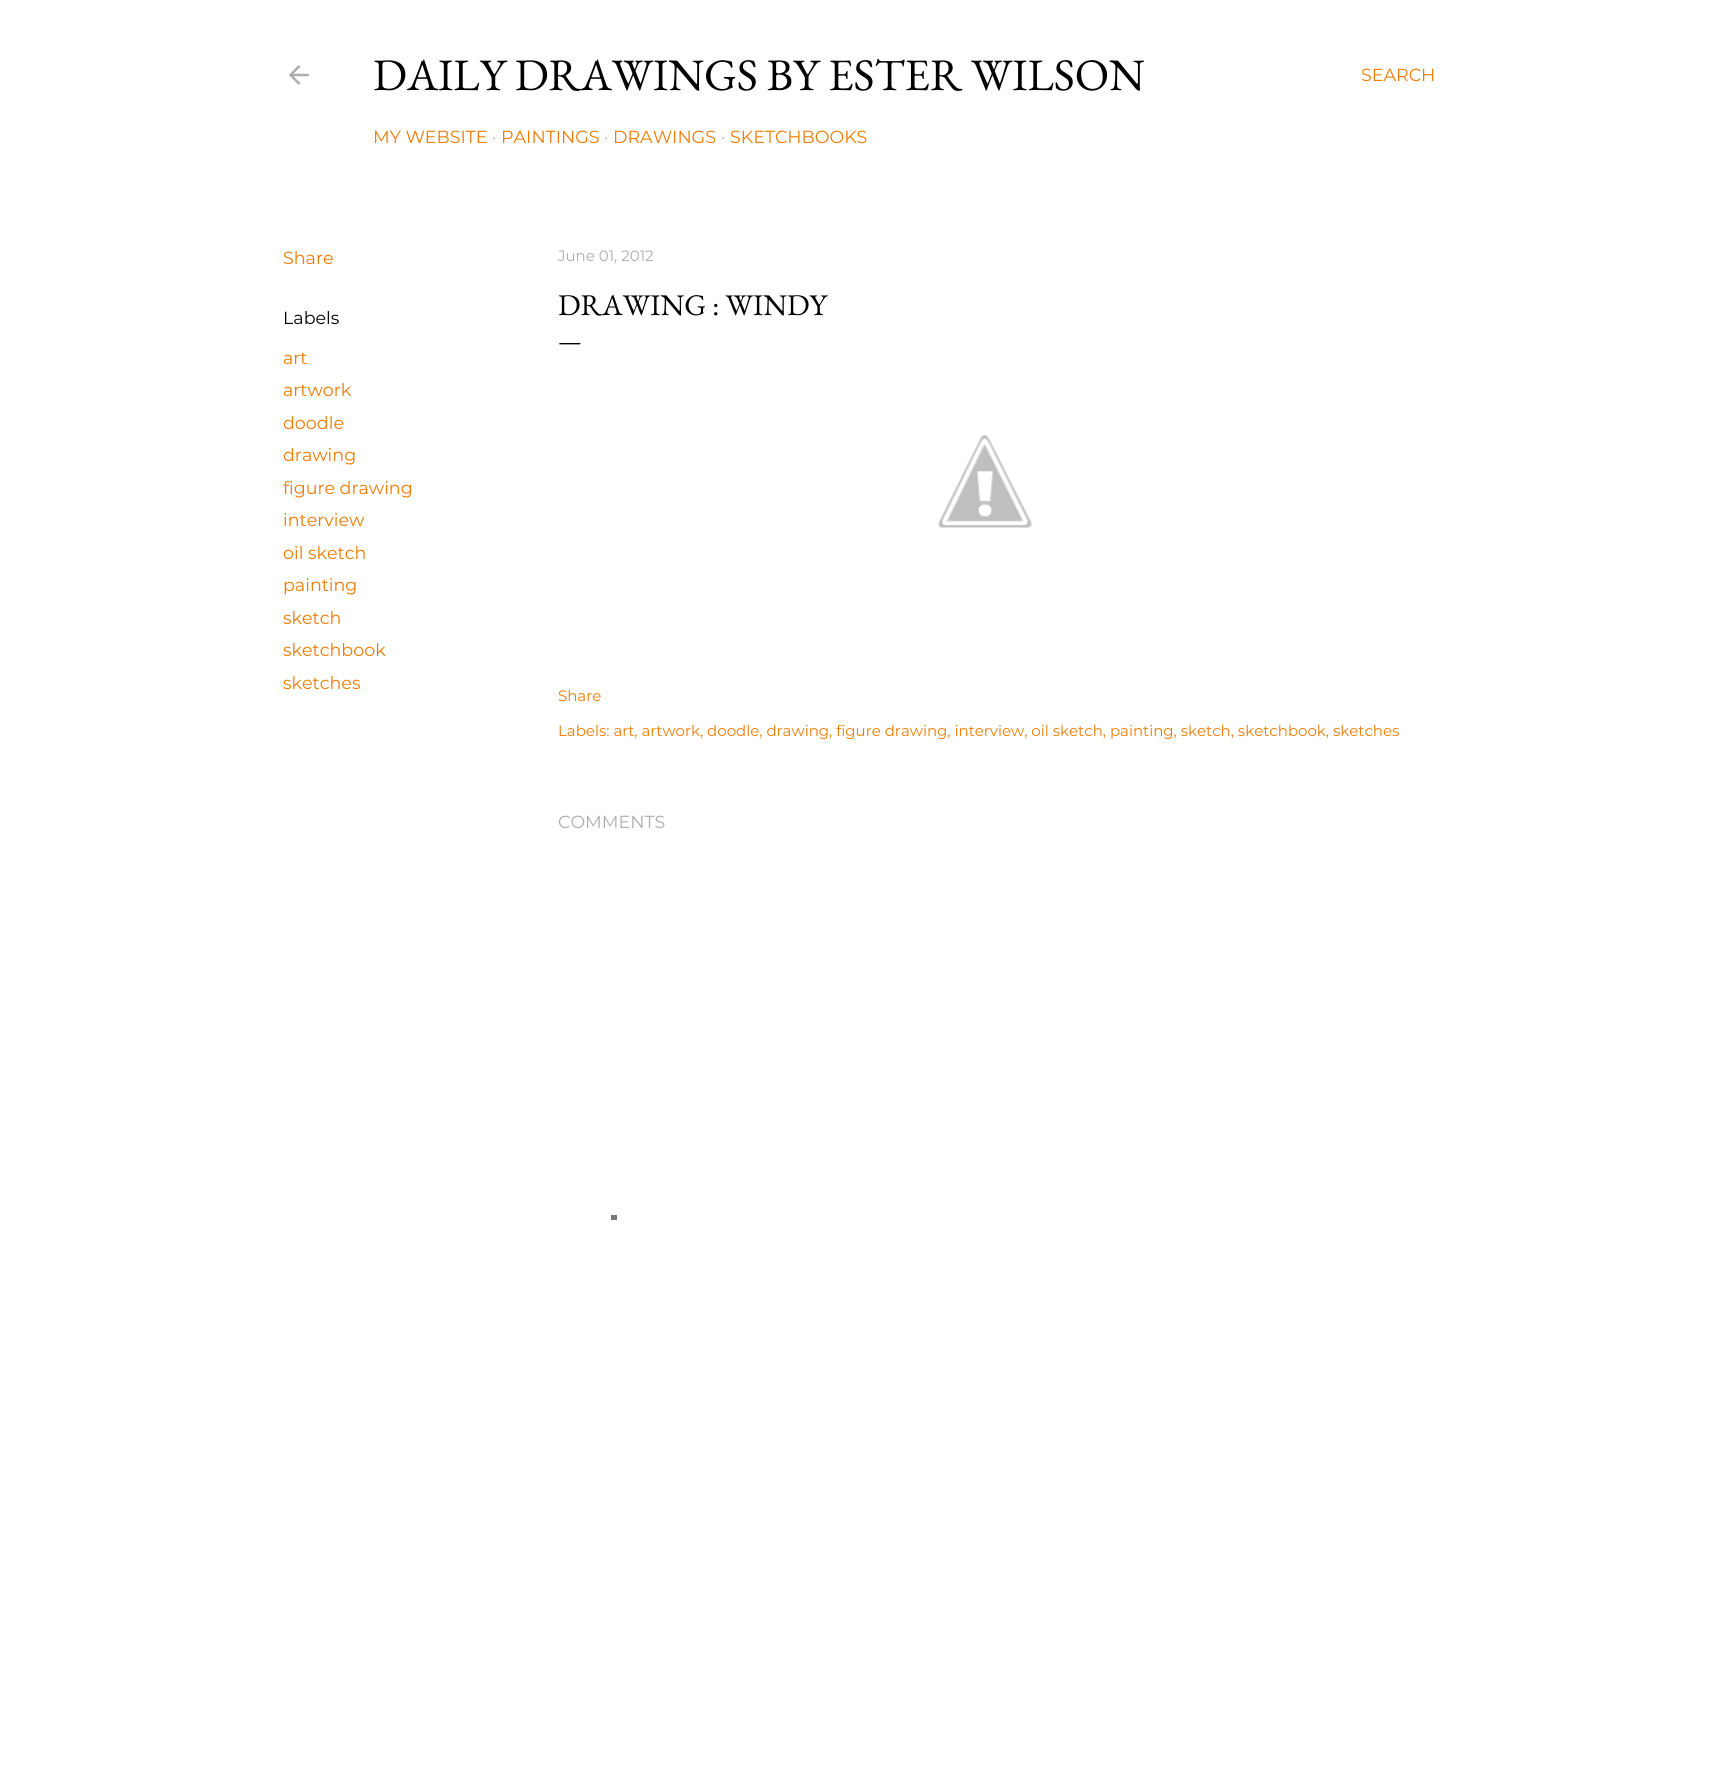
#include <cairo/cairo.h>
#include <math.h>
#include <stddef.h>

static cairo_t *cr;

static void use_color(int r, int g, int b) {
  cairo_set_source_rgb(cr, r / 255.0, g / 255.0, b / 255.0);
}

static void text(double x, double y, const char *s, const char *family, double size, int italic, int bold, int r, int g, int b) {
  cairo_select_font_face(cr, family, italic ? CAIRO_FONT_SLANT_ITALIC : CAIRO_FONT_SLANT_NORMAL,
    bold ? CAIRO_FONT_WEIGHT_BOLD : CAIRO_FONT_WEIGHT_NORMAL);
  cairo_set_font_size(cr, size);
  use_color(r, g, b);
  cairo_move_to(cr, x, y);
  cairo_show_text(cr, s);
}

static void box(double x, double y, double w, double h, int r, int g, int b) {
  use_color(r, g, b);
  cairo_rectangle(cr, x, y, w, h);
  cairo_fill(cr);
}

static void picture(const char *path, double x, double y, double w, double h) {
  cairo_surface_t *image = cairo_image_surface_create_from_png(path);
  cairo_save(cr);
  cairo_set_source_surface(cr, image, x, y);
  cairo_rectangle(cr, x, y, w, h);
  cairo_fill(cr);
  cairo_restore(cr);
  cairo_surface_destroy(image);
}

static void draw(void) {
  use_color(255, 255, 255);
  cairo_paint(cr);
  picture("img_01.png", 289, 65, 20, 20);
  picture("img_02.png", 938, 435, 94, 93);
  box(611, 1215, 6, 5, 117, 117, 117);
  text(373, 90, "DAILY DRAWINGS BY ESTER WILSON", "EB Garamond", 45, 0, 0, 0, 0, 0);
  text(373, 143, "MY WEBSITE", "Montserrat", 17.5, 0, 0, 240, 124, 5);
  text(492, 143, "·", "Montserrat", 17.5, 0, 0, 173, 173, 173);
  text(501, 143, "PAINTINGS", "Montserrat", 17.5, 0, 0, 240, 124, 5);
  text(604, 143, "·", "Montserrat", 17.5, 0, 0, 173, 173, 173);
  text(613, 143, "DRAWINGS", "Montserrat", 17.5, 0, 0, 240, 124, 5);
  text(721, 143, "·", "Montserrat", 17.5, 0, 0, 173, 173, 173);
  text(730, 143, "SKETCHBOOKS", "Montserrat", 17.5, 0, 0, 240, 124, 5);
  text(1361, 81, "SEARCH", "Montserrat", 17.5, 0, 0, 240, 124, 5);
  text(283, 264, "Share", "Montserrat", 17.5, 0, 0, 240, 124, 5);
  text(283, 324, "Labels", "Montserrat", 17.5, 0, 0, 0, 0, 0);
  text(283, 364, "art", "Montserrat", 17.5, 0, 0, 240, 124, 5);
  text(283, 396, "artwork", "Montserrat", 17.5, 0, 0, 240, 124, 5);
  text(283, 429, "doodle", "Montserrat", 17.5, 0, 0, 240, 124, 5);
  text(283, 461, "drawing", "Montserrat", 17.5, 0, 0, 240, 124, 5);
  text(283, 494, "figure drawing", "Montserrat", 17.5, 0, 0, 240, 124, 5);
  text(283, 526, "interview", "Montserrat", 17.5, 0, 0, 240, 124, 5);
  text(283, 559, "oil sketch", "Montserrat", 17.5, 0, 0, 240, 124, 5);
  text(283, 591, "painting", "Montserrat", 17.5, 0, 0, 240, 124, 5);
  text(283, 624, "sketch", "Montserrat", 17.5, 0, 0, 240, 124, 5);
  text(283, 656, "sketchbook", "Montserrat", 17.5, 0, 0, 240, 124, 5);
  text(283, 689, "sketches", "Montserrat", 17.5, 0, 0, 240, 124, 5);
  text(558, 261, "June 01, 2012", "Montserrat", 15, 0, 0, 173, 173, 173);
  text(558, 315, "DRAWING : WINDY", "EB Garamond", 30, 0, 0, 0, 0, 0);
  text(558, 349, "—", "EB Garamond", 25, 0, 0, 0, 0, 0);
  text(558, 701, "Share", "Montserrat", 15, 0, 0, 240, 124, 5);
  text(558, 736, "Labels: art, artwork, doodle, drawing, figure drawing, interview, oil sketch, painting, sketch, sketchbook, sketches", "Montserrat", 15, 0, 0, 240, 124, 5);
  text(558, 828, "COMMENTS", "Montserrat", 17.5, 0, 0, 173, 173, 173);
}

int main(void) {
  cairo_surface_t *surface = cairo_image_surface_create(CAIRO_FORMAT_RGB24, 1718, 1783);
  cr = cairo_create(surface);
  cairo_font_options_t *options = cairo_font_options_create();
  cairo_font_options_set_hint_metrics(options, CAIRO_HINT_METRICS_OFF);
  cairo_font_options_set_hint_style(options, CAIRO_HINT_STYLE_NONE);
  cairo_set_font_options(cr, options);
  cairo_set_miter_limit(cr, 4);
  draw();
  cairo_surface_write_to_png(surface, "out.png");
  cairo_font_options_destroy(options);
  cairo_destroy(cr);
  cairo_surface_destroy(surface);
  return 0;
}
